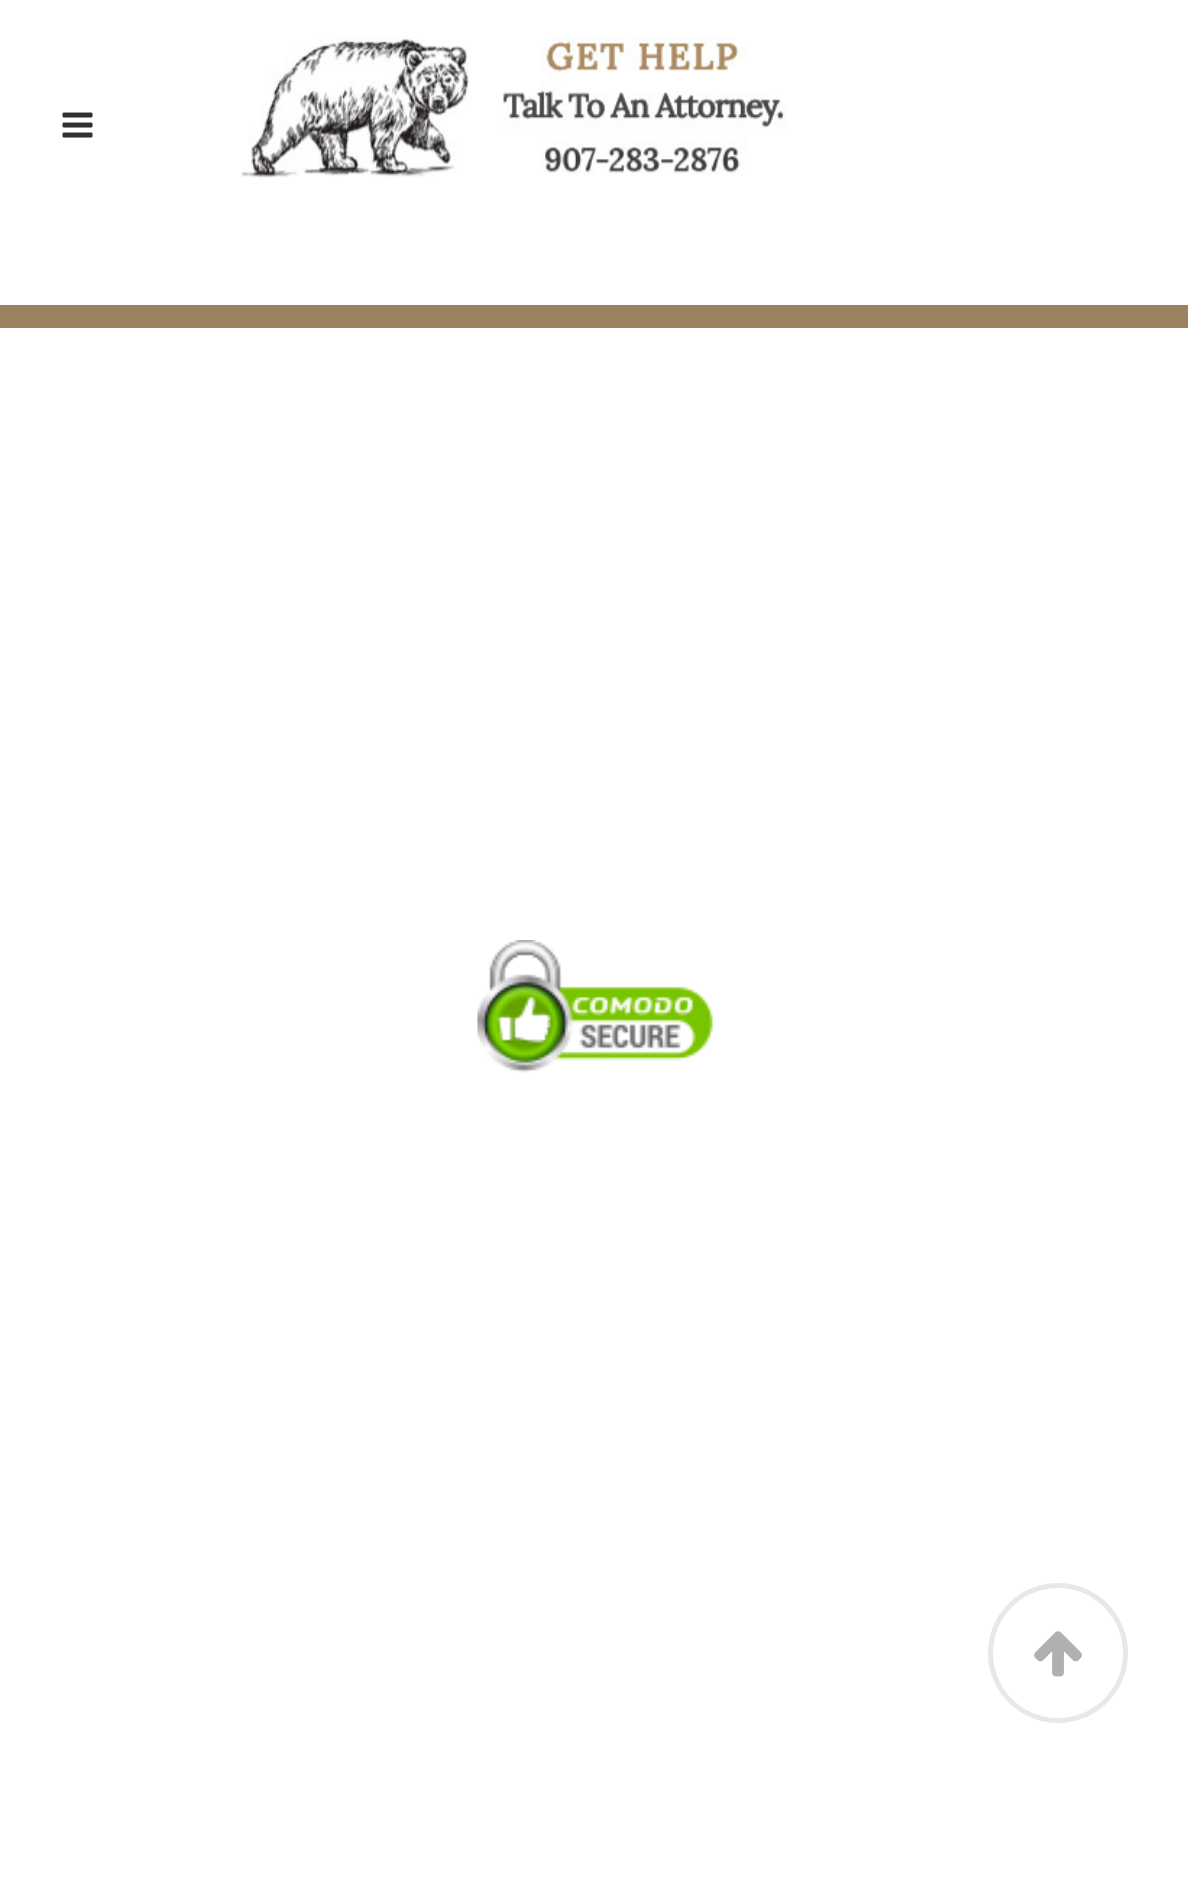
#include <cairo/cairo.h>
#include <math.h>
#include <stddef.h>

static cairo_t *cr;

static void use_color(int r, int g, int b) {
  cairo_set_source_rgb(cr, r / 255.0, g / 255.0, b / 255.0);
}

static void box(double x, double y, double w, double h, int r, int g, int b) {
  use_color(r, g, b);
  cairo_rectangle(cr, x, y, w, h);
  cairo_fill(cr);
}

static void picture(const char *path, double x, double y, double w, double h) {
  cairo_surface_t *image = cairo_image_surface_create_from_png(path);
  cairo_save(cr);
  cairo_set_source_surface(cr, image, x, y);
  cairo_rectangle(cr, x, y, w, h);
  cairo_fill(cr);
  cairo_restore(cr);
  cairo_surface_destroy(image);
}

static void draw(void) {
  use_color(255, 255, 255);
  cairo_paint(cr);
  picture("img_01.png", 62, 112, 31, 26);
  picture("img_02.png", 241, 35, 546, 143);
  box(0, 305, 1188, 23, 155, 130, 94);
  picture("img_03.png", 477, 940, 236, 133);
  cairo_arc(cr, 1058, 1653, 67.5, 0, 2 * M_PI);
  use_color(232, 232, 232);
  cairo_set_line_width(cr, 5);
  cairo_stroke(cr);
  picture("img_04.png", 1034, 1631, 48, 46);
}

int main(void) {
  cairo_surface_t *surface = cairo_image_surface_create(CAIRO_FORMAT_RGB24, 1188, 1883);
  cr = cairo_create(surface);
  cairo_font_options_t *options = cairo_font_options_create();
  cairo_font_options_set_hint_metrics(options, CAIRO_HINT_METRICS_OFF);
  cairo_font_options_set_hint_style(options, CAIRO_HINT_STYLE_NONE);
  cairo_set_font_options(cr, options);
  cairo_set_miter_limit(cr, 4);
  draw();
  cairo_surface_write_to_png(surface, "out.png");
  cairo_font_options_destroy(options);
  cairo_destroy(cr);
  cairo_surface_destroy(surface);
  return 0;
}
